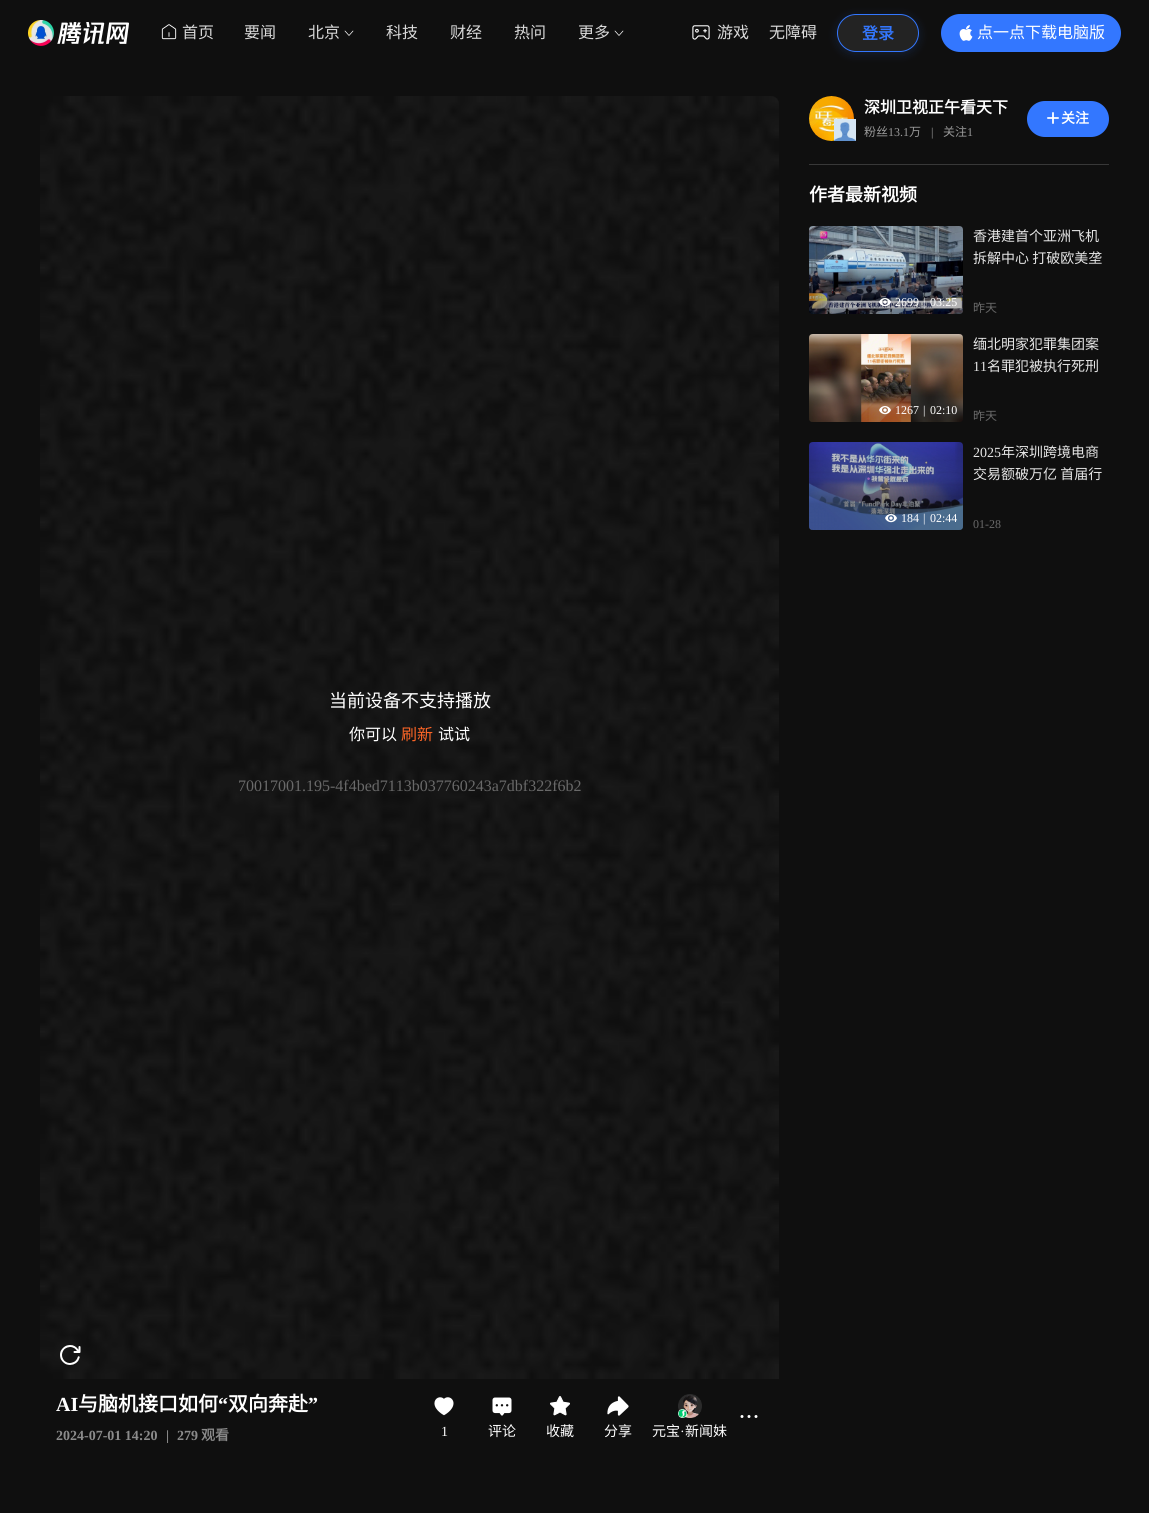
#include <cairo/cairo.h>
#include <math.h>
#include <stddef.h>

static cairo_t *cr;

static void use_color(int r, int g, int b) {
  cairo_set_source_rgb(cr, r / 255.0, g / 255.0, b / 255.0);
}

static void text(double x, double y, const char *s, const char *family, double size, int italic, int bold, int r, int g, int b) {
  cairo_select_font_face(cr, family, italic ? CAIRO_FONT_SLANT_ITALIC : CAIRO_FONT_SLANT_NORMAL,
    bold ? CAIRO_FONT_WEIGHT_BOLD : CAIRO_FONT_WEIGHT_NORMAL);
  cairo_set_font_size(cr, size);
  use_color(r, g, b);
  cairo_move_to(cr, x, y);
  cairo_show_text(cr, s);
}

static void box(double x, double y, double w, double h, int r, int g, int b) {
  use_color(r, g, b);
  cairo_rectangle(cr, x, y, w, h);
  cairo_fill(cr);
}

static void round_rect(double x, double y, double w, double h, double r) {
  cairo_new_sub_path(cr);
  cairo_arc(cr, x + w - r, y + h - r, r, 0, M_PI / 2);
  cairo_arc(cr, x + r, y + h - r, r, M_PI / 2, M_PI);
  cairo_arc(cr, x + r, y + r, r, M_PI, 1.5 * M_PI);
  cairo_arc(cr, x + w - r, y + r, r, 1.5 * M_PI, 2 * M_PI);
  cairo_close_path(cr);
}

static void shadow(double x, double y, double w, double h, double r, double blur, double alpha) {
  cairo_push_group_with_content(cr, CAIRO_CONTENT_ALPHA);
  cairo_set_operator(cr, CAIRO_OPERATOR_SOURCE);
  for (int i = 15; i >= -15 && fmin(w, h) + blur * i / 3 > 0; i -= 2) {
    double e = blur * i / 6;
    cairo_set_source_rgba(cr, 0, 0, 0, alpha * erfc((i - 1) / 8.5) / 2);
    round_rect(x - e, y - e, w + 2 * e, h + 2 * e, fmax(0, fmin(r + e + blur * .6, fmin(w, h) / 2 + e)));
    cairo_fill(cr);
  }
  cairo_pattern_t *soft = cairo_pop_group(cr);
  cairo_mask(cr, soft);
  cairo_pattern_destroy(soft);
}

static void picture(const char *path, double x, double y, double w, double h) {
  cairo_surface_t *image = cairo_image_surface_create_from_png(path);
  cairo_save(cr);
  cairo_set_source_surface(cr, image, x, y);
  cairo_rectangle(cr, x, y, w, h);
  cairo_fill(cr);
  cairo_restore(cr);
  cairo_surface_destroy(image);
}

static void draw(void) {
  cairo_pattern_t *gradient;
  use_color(15, 15, 15);
  cairo_paint(cr);
  picture("img_01.png", 28, 20, 101, 26);
  picture("img_02.png", 161, 24, 16, 16);
  cairo_new_path(cr);
  cairo_move_to(cr, 353, 31);
  cairo_line_to(cr, 349, 35.5);
  cairo_line_to(cr, 345, 31);
  use_color(255, 255, 255);
  cairo_set_line_width(cr, 0.7);
  cairo_set_line_cap(cr, CAIRO_LINE_CAP_ROUND);
  cairo_set_line_join(cr, CAIRO_LINE_JOIN_ROUND);
  cairo_stroke(cr);
  cairo_new_path(cr);
  cairo_move_to(cr, 623, 31);
  cairo_line_to(cr, 619, 35.5);
  cairo_line_to(cr, 615, 31);
  cairo_stroke(cr);
  picture("img_03.png", 692, 25, 18, 15);
  cairo_save(cr);
  cairo_set_fill_rule(cr, CAIRO_FILL_RULE_EVEN_ODD);
  cairo_new_path(cr);
  cairo_move_to(cr, 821, 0);
  cairo_line_to(cr, 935, 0);
  cairo_line_to(cr, 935, 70);
  cairo_line_to(cr, 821, 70);
  cairo_close_path(cr);
  cairo_move_to(cr, 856, 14);
  cairo_line_to(cr, 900, 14);
  cairo_curve_to(cr, 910.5, 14, 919, 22.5, 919, 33);
  cairo_curve_to(cr, 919, 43.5, 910.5, 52, 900, 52);
  cairo_line_to(cr, 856, 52);
  cairo_curve_to(cr, 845.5, 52, 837, 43.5, 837, 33);
  cairo_curve_to(cr, 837, 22.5, 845.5, 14, 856, 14);
  cairo_close_path(cr);
  cairo_clip(cr);
  use_color(51, 119, 255);
  shadow(837, 16, 82, 38, 19, 5, 0.16);
  cairo_restore(cr);
  cairo_set_source_rgba(cr, 0.851, 0.851, 0.851, 0.1);
  round_rect(837.5, 14.5, 81, 37, 18.5);
  cairo_fill_preserve(cr);
  use_color(51, 119, 255);
  cairo_set_line_width(cr, 1);
  cairo_set_line_cap(cr, CAIRO_LINE_CAP_BUTT);
  cairo_set_line_join(cr, CAIRO_LINE_JOIN_MITER);
  cairo_stroke(cr);
  round_rect(941, 14, 180, 38, 19);
  cairo_fill(cr);
  picture("img_04.png", 959, 25, 14, 16);
  picture("img_05.png", 809, 96, 45, 45);
  picture("img_06.png", 834, 119, 22, 22);
  round_rect(1027, 101, 82, 36, 18);
  cairo_fill(cr);
  picture("img_07.png", 1047, 112, 12, 12);
  box(809, 164, 300, 1, 56, 56, 56);
  picture("img_08.png", 809, 226, 154, 88);
  gradient = cairo_pattern_create_linear(886, 314, 886, 226);
  cairo_pattern_add_color_stop_rgba(gradient, 0.3, 0, 0, 0, 0.3);
  cairo_pattern_add_color_stop_rgba(gradient, 0.6, 0, 0, 0, 0);
  cairo_set_source(cr, gradient);
  cairo_pattern_destroy(gradient);
  round_rect(809, 226, 154, 88, 4);
  cairo_fill(cr);
  picture("img_09.png", 879, 298, 12, 9);
  picture("img_10.png", 809, 334, 154, 88);
  gradient = cairo_pattern_create_linear(886, 422, 886, 334);
  cairo_pattern_add_color_stop_rgba(gradient, 0.3, 0, 0, 0, 0.3);
  cairo_pattern_add_color_stop_rgba(gradient, 0.6, 0, 0, 0, 0);
  cairo_set_source(cr, gradient);
  cairo_pattern_destroy(gradient);
  round_rect(809, 334, 154, 88, 4);
  cairo_fill(cr);
  picture("img_11.png", 879, 406, 12, 9);
  picture("img_12.png", 809, 442, 154, 88);
  gradient = cairo_pattern_create_linear(886, 530, 886, 442);
  cairo_pattern_add_color_stop_rgba(gradient, 0.3, 0, 0, 0, 0.3);
  cairo_pattern_add_color_stop_rgba(gradient, 0.6, 0, 0, 0, 0);
  cairo_set_source(cr, gradient);
  cairo_pattern_destroy(gradient);
  round_rect(809, 442, 154, 88, 4);
  cairo_fill(cr);
  picture("img_13.png", 885, 514, 12, 9);
  picture("img_14.png", 40, 96, 739, 1283);
  picture("img_15.png", 740, 1415, 18, 3);
  picture("img_16.png", 434, 1397, 20, 19);
  picture("img_17.png", 492, 1397, 20, 19);
  picture("img_18.png", 550, 1396, 20, 20);
  picture("img_19.png", 607, 1396, 22, 20);
  picture("img_20.png", 678, 1394, 24, 24);
  picture("img_21.png", 678, 1409, 9, 9);
  text(182, 38, "首页", "Noto Sans CJK SC", 16, 0, 0, 217, 217, 217);
  text(244, 38, "要闻", "Noto Sans CJK SC", 16, 0, 0, 217, 217, 217);
  text(308, 38, "北京", "Noto Sans CJK SC", 16, 0, 0, 217, 217, 217);
  text(386, 38, "科技", "Noto Sans CJK SC", 16, 0, 0, 217, 217, 217);
  text(450, 38, "财经", "Noto Sans CJK SC", 16, 0, 0, 217, 217, 217);
  text(514, 38, "热问", "Noto Sans CJK SC", 16, 0, 0, 217, 217, 217);
  text(578, 38, "更多", "Noto Sans CJK SC", 16, 0, 0, 217, 217, 217);
  text(717, 38, "游戏", "Noto Sans CJK SC", 16, 0, 0, 217, 217, 217);
  text(769, 38, "无障碍", "Noto Sans CJK SC", 16, 0, 0, 217, 217, 217);
  text(862, 39, "登录", "Noto Sans CJK SC", 16, 0, 1, 51, 119, 255);
  text(977, 38, "点一点下载电脑版", "Noto Sans CJK SC", 16, 0, 0, 255, 255, 255);
  text(864, 113, "深圳卫视正午看天下", "Noto Sans CJK SC", 16, 0, 1, 255, 255, 255);
  text(864, 136, "粉丝", "Noto Sans CJK SC", 12, 0, 0, 153, 153, 153);
  text(888, 136, "13.1", "Liberation Serif", 12, 0, 0, 153, 153, 153);
  text(909, 136, "万", "Noto Sans CJK SC", 12, 0, 0, 153, 153, 153);
  text(931, 136, "|", "Liberation Serif", 12, 0, 0, 153, 153, 153);
  text(943, 136, "关注", "Noto Sans CJK SC", 12, 0, 0, 153, 153, 153);
  text(967, 136, "1", "Liberation Serif", 12, 0, 0, 153, 153, 153);
  text(1061, 123, "关注", "Noto Sans CJK SC", 14, 0, 1, 255, 255, 255);
  text(809, 201, "作者最新视频", "Noto Sans CJK SC", 18, 0, 1, 255, 255, 255);
  text(895, 306, "2699", "Liberation Serif", 12, 0, 0, 255, 255, 255);
  text(923, 306, "|", "Liberation Serif", 12, 0, 0, 255, 255, 255);
  text(930, 306, "03:25", "Liberation Serif", 12, 0, 0, 255, 255, 255);
  text(973, 241, "香港建首个亚洲飞机", "Noto Sans CJK SC", 14, 0, 0, 230, 230, 230);
  text(973, 263, "拆解中心 打破欧美垄", "Noto Sans CJK SC", 14, 0, 0, 230, 230, 230);
  text(973, 312, "昨天", "Noto Sans CJK SC", 12, 0, 0, 105, 105, 105);
  text(895, 414, "1267", "Liberation Serif", 12, 0, 0, 255, 255, 255);
  text(923, 414, "|", "Liberation Serif", 12, 0, 0, 255, 255, 255);
  text(930, 414, "02:10", "Liberation Serif", 12, 0, 0, 255, 255, 255);
  text(973, 349, "缅北明家犯罪集团案", "Noto Sans CJK SC", 14, 0, 0, 230, 230, 230);
  text(973, 371, "11", "Liberation Serif", 14, 0, 0, 230, 230, 230);
  text(987, 371, "名罪犯被执行死刑", "Noto Sans CJK SC", 14, 0, 0, 230, 230, 230);
  text(973, 420, "昨天", "Noto Sans CJK SC", 12, 0, 0, 105, 105, 105);
  text(901, 522, "184", "Liberation Serif", 12, 0, 0, 255, 255, 255);
  text(923, 522, "|", "Liberation Serif", 12, 0, 0, 255, 255, 255);
  text(930, 522, "02:44", "Liberation Serif", 12, 0, 0, 255, 255, 255);
  text(973, 457, "2025", "Liberation Serif", 14, 0, 0, 230, 230, 230);
  text(1001, 457, "年深圳跨境电商", "Noto Sans CJK SC", 14, 0, 0, 230, 230, 230);
  text(973, 479, "交易额破万亿 首届行", "Noto Sans CJK SC", 14, 0, 0, 230, 230, 230);
  text(973, 528, "01-28", "Liberation Serif", 12, 0, 0, 105, 105, 105);
  text(329, 707, "当前设备不支持播放", "Noto Sans CJK SC", 18, 0, 0, 255, 255, 255);
  text(349, 740, "你可以", "Noto Sans CJK SC", 16, 0, 0, 255, 255, 255);
  text(401, 740, "刷新", "Noto Sans CJK SC", 16, 0, 0, 252, 101, 38);
  text(438, 740, "试试", "Noto Sans CJK SC", 16, 0, 0, 255, 255, 255);
  text(238, 791, "70017001.195-4f4bed7113b037760243a7dbf322f6b2", "Liberation Serif", 16, 0, 0, 105, 105, 105);
  text(56, 1411, "AI", "Liberation Serif", 20, 0, 1, 255, 255, 255);
  text(78, 1411, "与脑机接口如何", "Noto Sans CJK SC", 20, 0, 1, 255, 255, 255);
  text(218, 1411, "“", "Liberation Serif", 20, 0, 1, 255, 255, 255);
  text(228, 1411, "双向奔赴", "Noto Sans CJK SC", 20, 0, 1, 255, 255, 255);
  text(308, 1411, "”", "Liberation Serif", 20, 0, 1, 255, 255, 255);
  text(56, 1440, "2024-07-01 14:20", "Liberation Serif", 14, 0, 1, 139, 139, 139);
  text(166, 1440, "|", "Liberation Serif", 14, 0, 1, 139, 139, 139);
  text(177, 1440, "279", "Liberation Serif", 14, 0, 1, 139, 139, 139);
  text(201, 1440, "观看", "Noto Sans CJK SC", 14, 0, 1, 139, 139, 139);
  text(441, 1436, "1", "Liberation Serif", 14, 0, 0, 255, 255, 255);
  text(488, 1436, "评论", "Noto Sans CJK SC", 14, 0, 0, 255, 255, 255);
  text(546, 1436, "收藏", "Noto Sans CJK SC", 14, 0, 0, 255, 255, 255);
  text(604, 1436, "分享", "Noto Sans CJK SC", 14, 0, 0, 255, 255, 255);
  text(652, 1436, "元宝", "Noto Sans CJK SC", 14, 0, 0, 255, 255, 255);
  text(680, 1436, "·", "Liberation Serif", 14, 0, 0, 255, 255, 255);
  text(685, 1436, "新闻妹", "Noto Sans CJK SC", 14, 0, 0, 255, 255, 255);
}

int main(void) {
  cairo_surface_t *surface = cairo_image_surface_create(CAIRO_FORMAT_RGB24, 1149, 1513);
  cr = cairo_create(surface);
  cairo_font_options_t *options = cairo_font_options_create();
  cairo_font_options_set_hint_metrics(options, CAIRO_HINT_METRICS_OFF);
  cairo_font_options_set_hint_style(options, CAIRO_HINT_STYLE_NONE);
  cairo_set_font_options(cr, options);
  cairo_set_miter_limit(cr, 4);
  draw();
  cairo_surface_write_to_png(surface, "out.png");
  cairo_font_options_destroy(options);
  cairo_destroy(cr);
  cairo_surface_destroy(surface);
  return 0;
}
